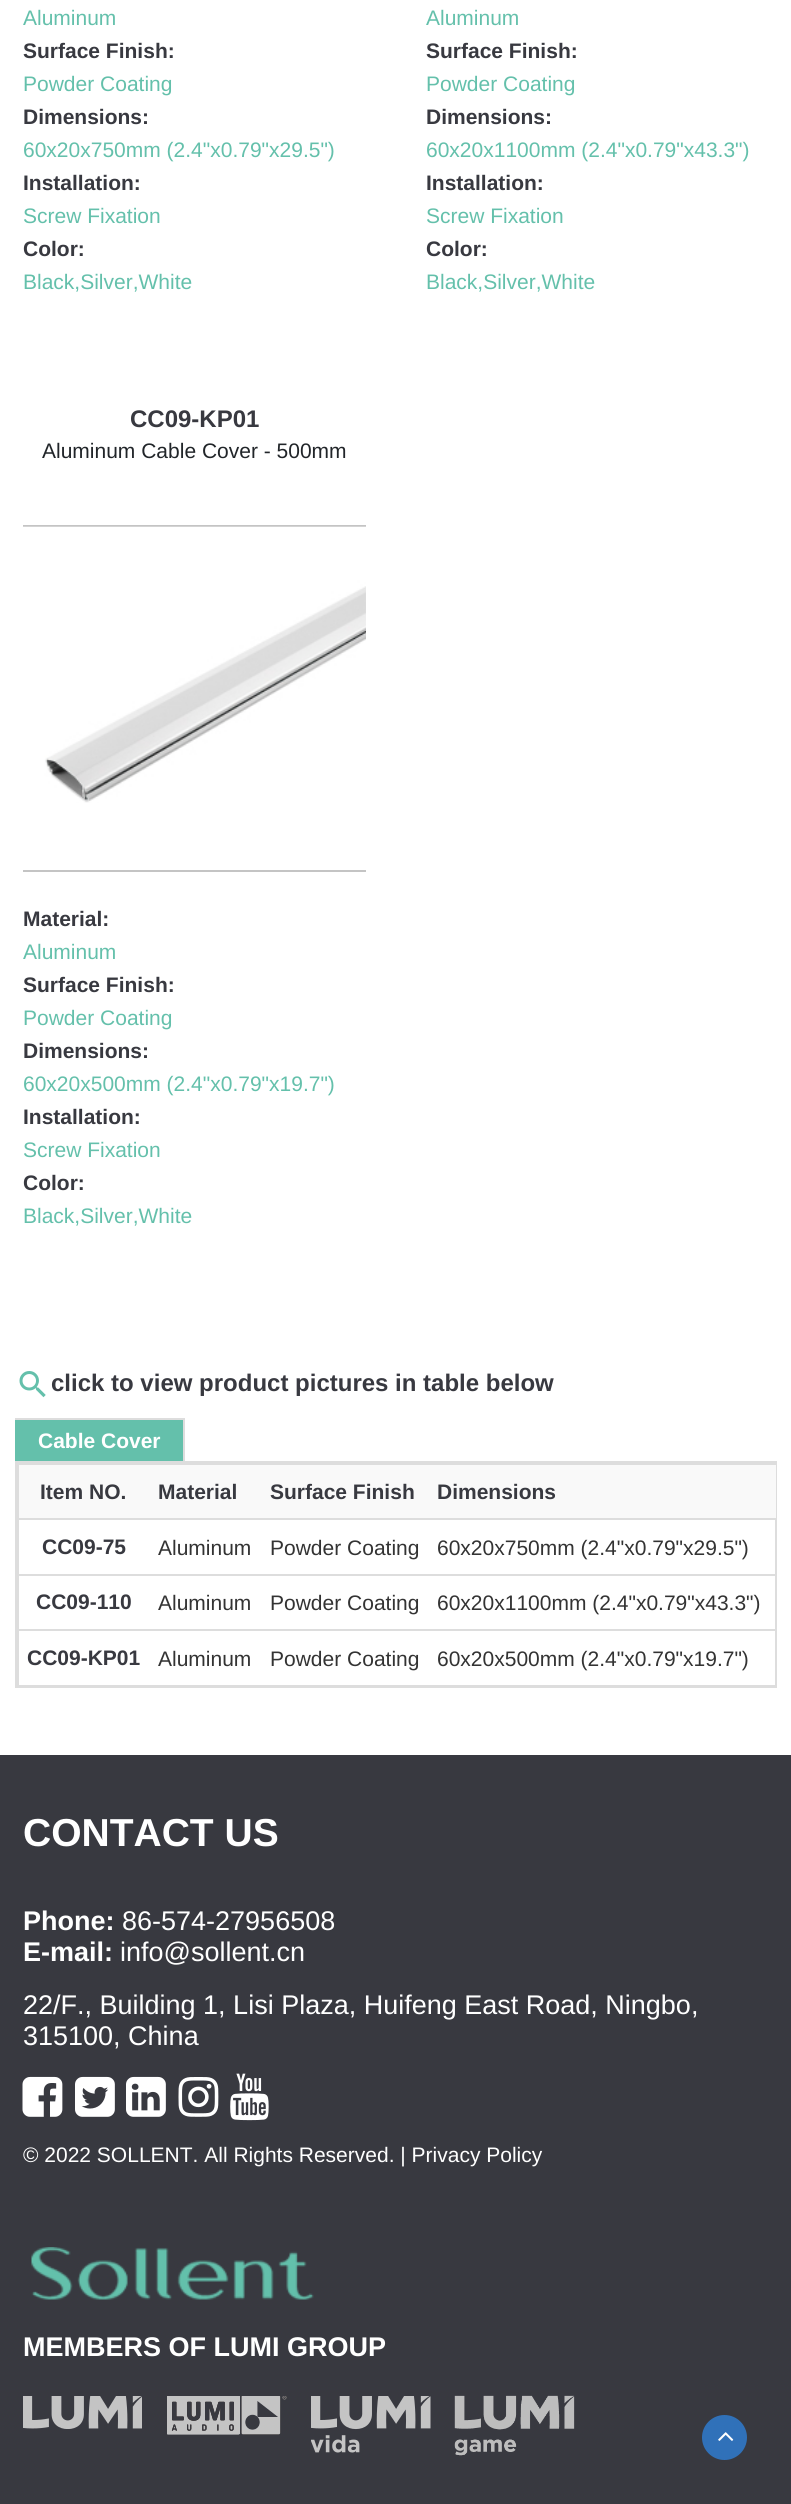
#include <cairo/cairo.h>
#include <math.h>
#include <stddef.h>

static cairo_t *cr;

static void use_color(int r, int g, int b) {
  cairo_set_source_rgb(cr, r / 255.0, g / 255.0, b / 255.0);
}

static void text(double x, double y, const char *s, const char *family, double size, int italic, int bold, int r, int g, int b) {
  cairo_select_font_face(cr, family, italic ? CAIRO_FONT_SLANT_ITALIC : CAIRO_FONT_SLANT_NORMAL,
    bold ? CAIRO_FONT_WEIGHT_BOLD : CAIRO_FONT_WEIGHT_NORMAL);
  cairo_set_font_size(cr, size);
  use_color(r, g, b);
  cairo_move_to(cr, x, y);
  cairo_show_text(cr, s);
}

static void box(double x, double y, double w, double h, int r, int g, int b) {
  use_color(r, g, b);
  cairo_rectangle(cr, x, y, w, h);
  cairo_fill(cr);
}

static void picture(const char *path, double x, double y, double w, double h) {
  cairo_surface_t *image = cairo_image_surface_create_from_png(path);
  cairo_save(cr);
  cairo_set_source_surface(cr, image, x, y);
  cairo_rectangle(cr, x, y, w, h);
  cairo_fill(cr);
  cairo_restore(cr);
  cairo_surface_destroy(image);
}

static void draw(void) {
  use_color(255, 255, 255);
  cairo_paint(cr);
  box(23, 525, 343, 2, 196, 196, 196);
  box(23, 870, 343, 2, 196, 196, 196);
  picture("img_01.png", 23, 526, 343, 277);
  picture("img_02.png", 19, 1371, 27, 27);
  box(15, 1420, 168, 41, 100, 192, 171);
  box(15, 1418, 170, 2, 221, 221, 221);
  box(183, 1418, 2, 43, 221, 221, 221);
  cairo_rectangle(cr, 16, 1462, 760, 225);
  cairo_stroke(cr);
  box(770, 1464, 6, 56, 249, 249, 249);
  box(17, 1463, 759, 2, 221, 221, 221);
  box(17, 1685, 759, 1, 221, 221, 221);
  box(17, 1463, 2, 223, 221, 221, 221);
  box(19, 1465, 751, 53, 249, 249, 249);
  box(17, 1518, 759, 2, 221, 221, 221);
  box(17, 1574, 759, 2, 221, 221, 221);
  box(17, 1629, 759, 2, 221, 221, 221);
  box(0, 1755, 791, 749, 56, 57, 64);
  picture("img_03.png", 22, 2076, 41, 41);
  picture("img_04.png", 75, 2076, 40, 41);
  picture("img_05.png", 126, 2076, 40, 41);
  picture("img_06.png", 178, 2077, 41, 40);
  picture("img_07.png", 230, 2073, 39, 48);
  picture("img_08.png", 31, 2247, 283, 53);
  picture("img_09.png", 23, 2396, 119, 33);
  picture("img_10.png", 167, 2396, 120, 39);
  picture("img_11.png", 311, 2396, 120, 57);
  picture("img_12.png", 454, 2395, 121, 61);
  use_color(48, 113, 185);
  cairo_arc(cr, 724.5, 2437.5, 22.5, 0, 2 * M_PI);
  cairo_fill(cr);
  picture("img_13.png", 718, 2432, 16, 9);
  text(23, 25, "Aluminum", "Liberation Sans", 21, 0, 0, 100, 192, 171);
  text(23, 58, "Surface Finish:", "Liberation Sans", 21, 0, 1, 56, 57, 64);
  text(23, 91, "Powder Coating", "Liberation Sans", 21, 0, 0, 100, 192, 171);
  text(23, 124, "Dimensions:", "Liberation Sans", 21, 0, 1, 56, 57, 64);
  text(23, 157, "60x20x750mm (2.4\"x0.79\"x29.5\")", "Liberation Sans", 21, 0, 0, 100, 192, 171);
  text(23, 190, "Installation:", "Liberation Sans", 21, 0, 1, 56, 57, 64);
  text(23, 223, "Screw Fixation", "Liberation Sans", 21, 0, 0, 100, 192, 171);
  text(23, 256, "Color:", "Liberation Sans", 21, 0, 1, 56, 57, 64);
  text(23, 289, "Black,Silver,White", "Liberation Sans", 21, 0, 0, 100, 192, 171);
  text(426, 25, "Aluminum", "Liberation Sans", 21, 0, 0, 100, 192, 171);
  text(426, 58, "Surface Finish:", "Liberation Sans", 21, 0, 1, 56, 57, 64);
  text(426, 91, "Powder Coating", "Liberation Sans", 21, 0, 0, 100, 192, 171);
  text(426, 124, "Dimensions:", "Liberation Sans", 21, 0, 1, 56, 57, 64);
  text(426, 157, "60x20x1100mm (2.4\"x0.79\"x43.3\")", "Liberation Sans", 21, 0, 0, 100, 192, 171);
  text(426, 190, "Installation:", "Liberation Sans", 21, 0, 1, 56, 57, 64);
  text(426, 223, "Screw Fixation", "Liberation Sans", 21, 0, 0, 100, 192, 171);
  text(426, 256, "Color:", "Liberation Sans", 21, 0, 1, 56, 57, 64);
  text(426, 289, "Black,Silver,White", "Liberation Sans", 21, 0, 0, 100, 192, 171);
  text(130, 427, "CC09-KP01", "Liberation Sans", 24, 0, 1, 56, 57, 64);
  text(42, 458, "Aluminum Cable Cover - 500mm", "Liberation Sans", 21, 0, 0, 33, 37, 41);
  text(23, 926, "Material:", "Liberation Sans", 21, 0, 1, 56, 57, 64);
  text(23, 959, "Aluminum", "Liberation Sans", 21, 0, 0, 100, 192, 171);
  text(23, 992, "Surface Finish:", "Liberation Sans", 21, 0, 1, 56, 57, 64);
  text(23, 1025, "Powder Coating", "Liberation Sans", 21, 0, 0, 100, 192, 171);
  text(23, 1058, "Dimensions:", "Liberation Sans", 21, 0, 1, 56, 57, 64);
  text(23, 1091, "60x20x500mm (2.4\"x0.79\"x19.7\")", "Liberation Sans", 21, 0, 0, 100, 192, 171);
  text(23, 1124, "Installation:", "Liberation Sans", 21, 0, 1, 56, 57, 64);
  text(23, 1157, "Screw Fixation", "Liberation Sans", 21, 0, 0, 100, 192, 171);
  text(23, 1190, "Color:", "Liberation Sans", 21, 0, 1, 56, 57, 64);
  text(23, 1223, "Black,Silver,White", "Liberation Sans", 21, 0, 0, 100, 192, 171);
  text(51, 1391, "click to view product pictures in table below", "Liberation Sans", 24, 0, 1, 56, 57, 64);
  text(38, 1448, "Cable Cover", "Liberation Sans", 21, 0, 1, 255, 255, 255);
  text(40, 1499, "Item NO.", "Liberation Sans", 21, 0, 1, 56, 57, 64);
  text(158, 1499, "Material", "Liberation Sans", 21, 0, 1, 56, 57, 64);
  text(270, 1499, "Surface Finish", "Liberation Sans", 21, 0, 1, 56, 57, 64);
  text(437, 1499, "Dimensions", "Liberation Sans", 21, 0, 1, 56, 57, 64);
  text(42, 1554, "CC09-75", "Liberation Sans", 21, 0, 1, 56, 57, 64);
  text(158, 1555, "Aluminum", "Liberation Sans", 21, 0, 0, 51, 51, 51);
  text(270, 1555, "Powder Coating", "Liberation Sans", 21, 0, 0, 51, 51, 51);
  text(437, 1555, "60x20x750mm (2.4\"x0.79\"x29.5\")", "Liberation Sans", 21, 0, 0, 51, 51, 51);
  text(36, 1609, "CC09-110", "Liberation Sans", 21, 0, 1, 56, 57, 64);
  text(158, 1610, "Aluminum", "Liberation Sans", 21, 0, 0, 51, 51, 51);
  text(270, 1610, "Powder Coating", "Liberation Sans", 21, 0, 0, 51, 51, 51);
  text(437, 1610, "60x20x1100mm (2.4\"x0.79\"x43.3\")", "Liberation Sans", 21, 0, 0, 51, 51, 51);
  text(27, 1665, "CC09-KP01", "Liberation Sans", 21, 0, 1, 56, 57, 64);
  text(158, 1666, "Aluminum", "Liberation Sans", 21, 0, 0, 51, 51, 51);
  text(270, 1666, "Powder Coating", "Liberation Sans", 21, 0, 0, 51, 51, 51);
  text(437, 1666, "60x20x500mm (2.4\"x0.79\"x19.7\")", "Liberation Sans", 21, 0, 0, 51, 51, 51);
  text(23, 1846, "CONTACT US", "Liberation Sans", 39, 0, 1, 255, 255, 255);
  text(23, 1930, "Phone:", "Liberation Sans", 27, 0, 1, 255, 255, 255);
  text(122, 1930, "86-574-27956508", "Liberation Sans", 27, 0, 0, 255, 255, 255);
  text(23, 1961, "E-mail:", "Liberation Sans", 27, 0, 1, 255, 255, 255);
  text(120, 1961, "info@sollent.cn", "Liberation Sans", 27, 0, 0, 255, 255, 255);
  text(23, 2014, "22/F., Building 1, Lisi Plaza, Huifeng East Road, Ningbo,", "Liberation Sans", 27, 0, 0, 255, 255, 255);
  text(23, 2045, "315100, China", "Liberation Sans", 27, 0, 0, 255, 255, 255);
  text(23, 2162, "© 2022 SOLLENT. All Rights Reserved. | Privacy Policy", "Liberation Sans", 21, 0, 0, 255, 255, 255);
  text(23, 2356, "MEMBERS OF LUMI GROUP", "Liberation Sans", 27, 0, 1, 255, 255, 255);
}

int main(void) {
  cairo_surface_t *surface = cairo_image_surface_create(CAIRO_FORMAT_RGB24, 791, 2504);
  cr = cairo_create(surface);
  cairo_font_options_t *options = cairo_font_options_create();
  cairo_font_options_set_hint_metrics(options, CAIRO_HINT_METRICS_OFF);
  cairo_font_options_set_hint_style(options, CAIRO_HINT_STYLE_NONE);
  cairo_set_font_options(cr, options);
  cairo_set_miter_limit(cr, 4);
  draw();
  cairo_surface_write_to_png(surface, "out.png");
  cairo_font_options_destroy(options);
  cairo_destroy(cr);
  cairo_surface_destroy(surface);
  return 0;
}
